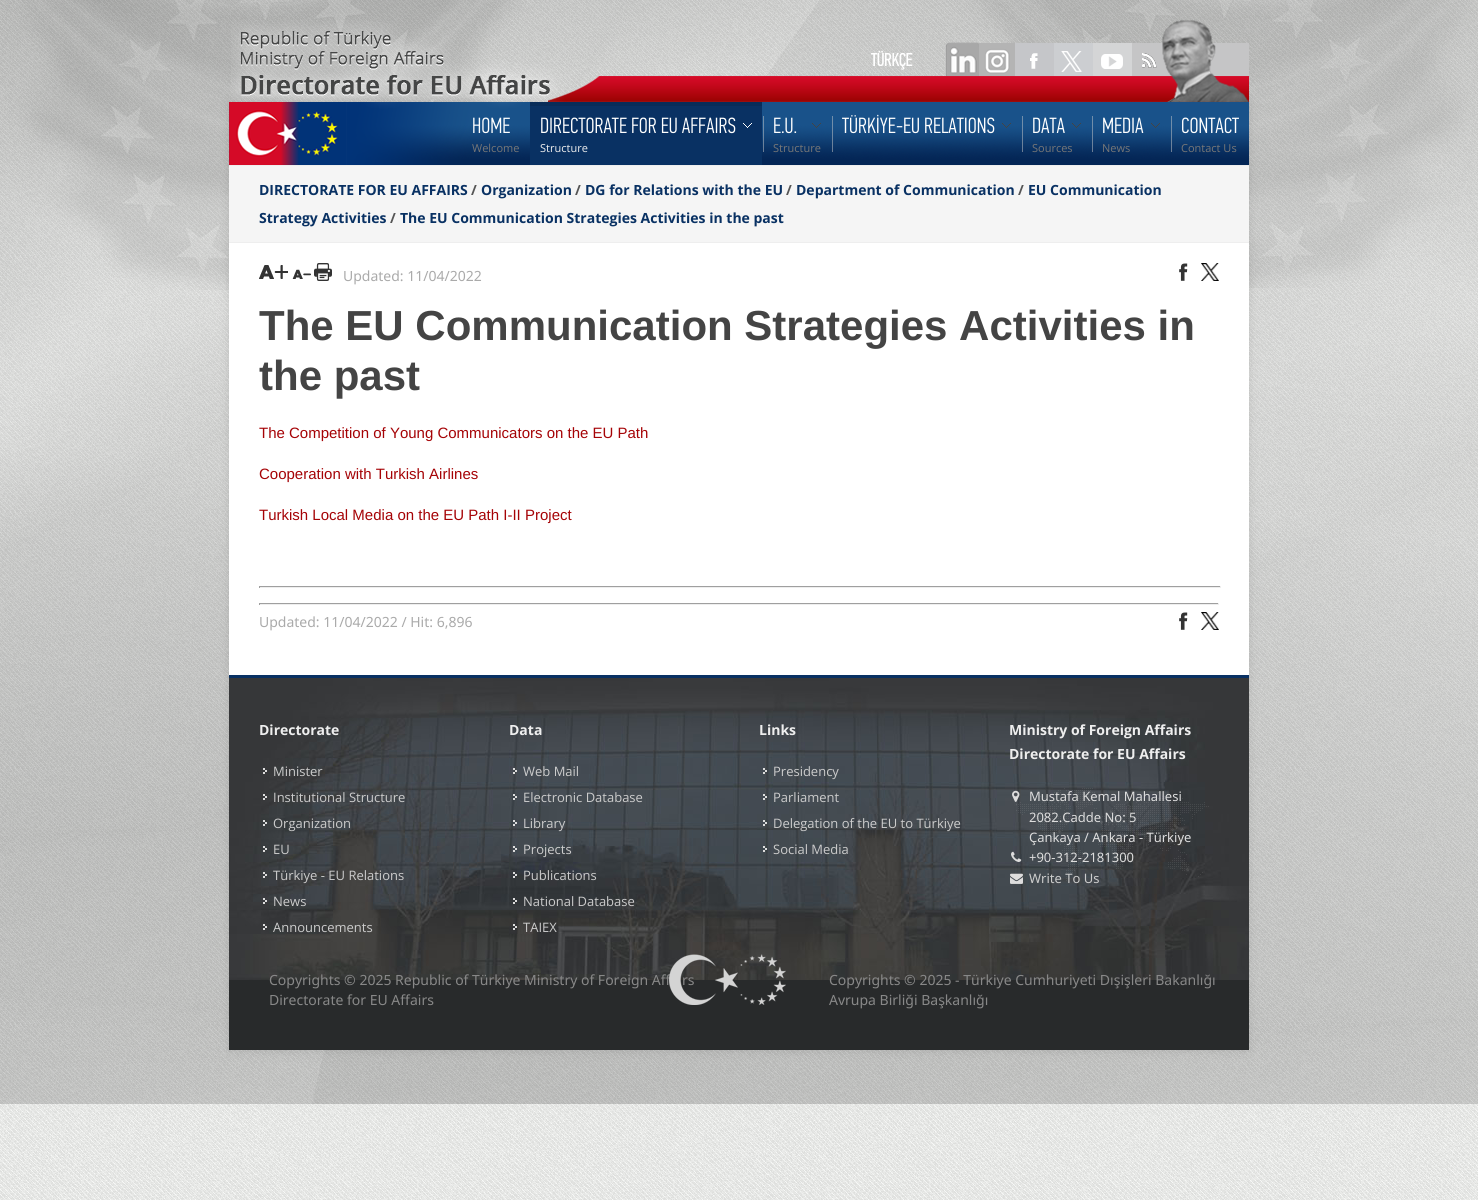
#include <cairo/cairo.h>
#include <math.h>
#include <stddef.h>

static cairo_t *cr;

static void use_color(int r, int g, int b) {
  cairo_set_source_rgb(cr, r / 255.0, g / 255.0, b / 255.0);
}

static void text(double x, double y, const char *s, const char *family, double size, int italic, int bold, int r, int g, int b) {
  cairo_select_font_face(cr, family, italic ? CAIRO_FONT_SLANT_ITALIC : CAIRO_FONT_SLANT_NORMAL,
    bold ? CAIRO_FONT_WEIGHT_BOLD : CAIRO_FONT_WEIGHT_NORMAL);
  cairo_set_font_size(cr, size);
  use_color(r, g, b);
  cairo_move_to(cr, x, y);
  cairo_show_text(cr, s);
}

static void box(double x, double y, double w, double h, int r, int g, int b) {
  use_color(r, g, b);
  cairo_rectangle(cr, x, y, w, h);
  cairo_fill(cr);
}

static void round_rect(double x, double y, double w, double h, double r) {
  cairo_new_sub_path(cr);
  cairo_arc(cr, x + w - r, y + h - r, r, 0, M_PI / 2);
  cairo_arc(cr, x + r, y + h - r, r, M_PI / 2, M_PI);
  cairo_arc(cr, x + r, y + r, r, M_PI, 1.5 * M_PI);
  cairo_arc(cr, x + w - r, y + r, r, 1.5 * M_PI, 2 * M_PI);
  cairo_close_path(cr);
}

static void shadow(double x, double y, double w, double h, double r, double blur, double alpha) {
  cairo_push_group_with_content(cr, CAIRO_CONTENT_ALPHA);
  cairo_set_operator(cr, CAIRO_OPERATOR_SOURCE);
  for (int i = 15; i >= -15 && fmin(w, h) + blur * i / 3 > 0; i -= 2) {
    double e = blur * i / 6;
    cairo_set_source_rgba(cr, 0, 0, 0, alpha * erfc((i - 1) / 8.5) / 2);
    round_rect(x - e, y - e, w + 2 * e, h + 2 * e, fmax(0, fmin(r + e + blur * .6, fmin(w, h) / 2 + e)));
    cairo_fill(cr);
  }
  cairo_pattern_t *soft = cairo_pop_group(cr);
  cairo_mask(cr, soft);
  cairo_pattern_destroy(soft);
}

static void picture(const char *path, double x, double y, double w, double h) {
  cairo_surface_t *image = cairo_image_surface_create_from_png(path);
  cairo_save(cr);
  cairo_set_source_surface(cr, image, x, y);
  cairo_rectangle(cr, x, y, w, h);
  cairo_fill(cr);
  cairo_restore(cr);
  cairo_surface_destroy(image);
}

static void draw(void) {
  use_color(255, 255, 255);
  cairo_paint(cr);
  picture("img_01.png", 0, 0, 1478, 1200);
  picture("img_02.png", 0, 0, 1478, 1104);
  picture("img_03.png", 231, 20, 1018, 82);
  use_color(0, 0, 0);
  shadow(229, 102, 1020, 948, 0, 5, 0.1);
  box(229, 243, 1020, 432, 255, 255, 255);
  picture("img_04.png", 229, 102, 1020, 63);
  box(530, 106, 232, 59, 9, 49, 99);
  box(530, 102, 232, 4, 8, 44, 89);
  picture("img_05.png", 743, 123, 9, 5);
  cairo_set_source_rgba(cr, 0.796, 0.796, 0.796, 0.5);
  cairo_rectangle(cr, 763, 116, 1, 36);
  cairo_fill(cr);
  picture("img_06.png", 812, 123, 9, 5);
  cairo_rectangle(cr, 832, 116, 1, 36);
  cairo_fill(cr);
  picture("img_07.png", 1002, 123, 9, 5);
  cairo_rectangle(cr, 1022, 116, 1, 36);
  cairo_fill(cr);
  picture("img_08.png", 1072, 123, 9, 5);
  cairo_rectangle(cr, 1092, 116, 1, 36);
  cairo_fill(cr);
  picture("img_09.png", 1151, 123, 9, 5);
  cairo_rectangle(cr, 1171, 116, 1, 36);
  cairo_fill(cr);
  box(229, 166, 1020, 76, 245, 245, 245);
  box(229, 165, 1020, 1, 238, 238, 238);
  box(229, 242, 1020, 1, 238, 238, 238);
  picture("img_10.png", 259, 265, 29, 14);
  picture("img_11.png", 292, 269, 19, 10);
  picture("img_12.png", 314, 263, 18, 18);
  picture("img_13.png", 1179, 263, 9, 18);
  picture("img_14.png", 1201, 263, 18, 18);
  box(259, 586, 962, 1, 159, 159, 159);
  box(1220, 586, 1, 2, 238, 238, 238);
  box(259, 587, 962, 1, 238, 238, 238);
  box(259, 586, 1, 2, 159, 159, 159);
  box(259, 603, 960, 1, 159, 159, 159);
  box(1218, 603, 1, 2, 238, 238, 238);
  box(259, 604, 960, 1, 238, 238, 238);
  box(259, 603, 1, 2, 159, 159, 159);
  picture("img_13.png", 1179, 612, 9, 18);
  picture("img_14.png", 1201, 612, 18, 18);
  picture("img_15.png", 229, 678, 1020, 302);
  box(229, 675, 1020, 3, 9, 49, 99);
  picture("img_16.png", 263, 768, 4, 6);
  picture("img_17.png", 263, 794, 4, 6);
  picture("img_18.png", 263, 820, 4, 6);
  picture("img_19.png", 263, 846, 4, 6);
  picture("img_20.png", 263, 872, 4, 6);
  picture("img_21.png", 263, 898, 4, 6);
  picture("img_22.png", 263, 924, 4, 6);
  picture("img_23.png", 513, 768, 4, 6);
  picture("img_24.png", 513, 794, 4, 6);
  picture("img_25.png", 513, 820, 4, 6);
  picture("img_26.png", 513, 846, 4, 6);
  picture("img_27.png", 513, 872, 4, 6);
  picture("img_28.png", 513, 898, 4, 6);
  picture("img_29.png", 513, 924, 4, 6);
  picture("img_30.png", 763, 768, 4, 6);
  picture("img_31.png", 763, 794, 4, 6);
  picture("img_32.png", 763, 820, 4, 6);
  picture("img_33.png", 763, 846, 4, 6);
  picture("img_34.png", 1016, 788, 193, 95);
  picture("img_35.png", 1012, 790, 8, 12);
  picture("img_36.png", 1011, 851, 11, 11);
  picture("img_37.png", 1010, 873, 13, 11);
  box(229, 980, 1020, 70, 40, 42, 43);
  text(871, 66, "TÜRKÇE", "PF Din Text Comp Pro", 18, 0, 1, 255, 255, 255);
  text(472, 133, "HOME", "PF Din Text Comp Pro Light", 22, 0, 0, 255, 255, 255);
  text(472, 152, "Welcome", "Open Sans", 11, 0, 0, 119, 119, 119);
  text(540, 133, "DIRECTORATE FOR EU AFFAIRS", "PF Din Text Comp Pro Light", 22, 0, 0, 255, 255, 255);
  text(540, 152, "Structure", "Open Sans", 11, 0, 0, 238, 238, 238);
  text(773, 133, "E.U.", "PF Din Text Comp Pro Light", 22, 0, 0, 255, 255, 255);
  text(773, 152, "Structure", "Open Sans", 11, 0, 0, 119, 119, 119);
  text(842, 133, "TÜRKİYE-EU RELATIONS", "PF Din Text Comp Pro Light", 22, 0, 0, 255, 255, 255);
  text(1032, 133, "DATA", "PF Din Text Comp Pro Light", 22, 0, 0, 255, 255, 255);
  text(1032, 152, "Sources", "Open Sans", 11, 0, 0, 119, 119, 119);
  text(1102, 133, "MEDIA", "PF Din Text Comp Pro Light", 22, 0, 0, 255, 255, 255);
  text(1102, 152, "News", "Open Sans", 11, 0, 0, 119, 119, 119);
  text(1181, 133, "CONTACT", "PF Din Text Comp Pro Light", 22, 0, 0, 255, 255, 255);
  text(1181, 152, "Contact Us", "Open Sans", 11, 0, 0, 119, 119, 119);
  text(259, 195, "DIRECTORATE FOR EU AFFAIRS", "Open Sans", 14, 0, 1, 9, 49, 99);
  text(471, 195, "/", "Open Sans", 14, 0, 1, 85, 85, 85);
  text(481, 195, "Organization", "Open Sans", 14, 0, 1, 9, 49, 99);
  text(575, 195, "/", "Open Sans", 14, 0, 1, 85, 85, 85);
  text(585, 195, "DG for Relations with the EU", "Open Sans", 14, 0, 1, 9, 49, 99);
  text(786, 195, "/", "Open Sans", 14, 0, 1, 85, 85, 85);
  text(796, 195, "Department of Communication", "Open Sans", 14, 0, 1, 9, 49, 99);
  text(1018, 195, "/", "Open Sans", 14, 0, 1, 85, 85, 85);
  text(1028, 195, "EU Communication", "Open Sans", 14, 0, 1, 9, 49, 99);
  text(259, 223, "Strategy Activities", "Open Sans", 14, 0, 1, 9, 49, 99);
  text(390, 223, "/", "Open Sans", 14, 0, 1, 85, 85, 85);
  text(400, 223, "The EU Communication Strategies Activities in the past", "Open Sans", 14, 0, 1, 9, 49, 99);
  text(343, 281, "Updated: 11/04/2022", "Noto Sans", 14, 0, 0, 170, 170, 170);
  text(259, 340, "The EU Communication Strategies Activities in", "Liberation Sans", 42, 0, 1, 68, 68, 68);
  text(259, 390, "the past", "Liberation Sans", 42, 0, 1, 68, 68, 68);
  text(259, 438, "The Competition of Young Communicators on the EU Path", "Liberation Sans", 15, 0, 0, 165, 3, 6);
  text(259, 479, "Cooperation with Turkish Airlines", "Liberation Sans", 15, 0, 0, 165, 3, 6);
  text(259, 520, "Turkish Local Media on the EU Path I-II Project", "Liberation Sans", 15, 0, 0, 165, 3, 6);
  text(259, 627, "Updated: 11/04/2022 / Hit: 6,896", "Noto Sans", 14, 0, 0, 170, 170, 170);
  text(259, 735, "Directorate", "Open Sans", 14, 0, 1, 238, 238, 238);
  text(273, 776, "Minister", "Open Sans", 13, 0, 0, 204, 204, 204);
  text(273, 802, "Institutional Structure", "Open Sans", 13, 0, 0, 204, 204, 204);
  text(273, 828, "Organization", "Open Sans", 13, 0, 0, 204, 204, 204);
  text(273, 854, "EU", "Open Sans", 13, 0, 0, 204, 204, 204);
  text(273, 880, "Türkiye - EU Relations", "Open Sans", 13, 0, 0, 204, 204, 204);
  text(273, 906, "News", "Open Sans", 13, 0, 0, 204, 204, 204);
  text(273, 932, "Announcements", "Open Sans", 13, 0, 0, 204, 204, 204);
  text(509, 735, "Data", "Open Sans", 14, 0, 1, 238, 238, 238);
  text(523, 776, "Web Mail", "Open Sans", 13, 0, 0, 204, 204, 204);
  text(523, 802, "Electronic Database", "Open Sans", 13, 0, 0, 204, 204, 204);
  text(523, 828, "Library", "Open Sans", 13, 0, 0, 204, 204, 204);
  text(523, 854, "Projects", "Open Sans", 13, 0, 0, 204, 204, 204);
  text(523, 880, "Publications", "Open Sans", 13, 0, 0, 204, 204, 204);
  text(523, 906, "National Database", "Open Sans", 13, 0, 0, 204, 204, 204);
  text(523, 932, "TAIEX", "Open Sans", 13, 0, 0, 204, 204, 204);
  text(759, 735, "Links", "Open Sans", 14, 0, 1, 238, 238, 238);
  text(773, 776, "Presidency", "Open Sans", 13, 0, 0, 204, 204, 204);
  text(773, 802, "Parliament", "Open Sans", 13, 0, 0, 204, 204, 204);
  text(773, 828, "Delegation of the EU to Türkiye", "Open Sans", 13, 0, 0, 204, 204, 204);
  text(773, 854, "Social Media", "Open Sans", 13, 0, 0, 204, 204, 204);
  text(1009, 735, "Ministry of Foreign Affairs", "Open Sans", 14, 0, 1, 238, 238, 238);
  text(1009, 759, "Directorate for EU Affairs", "Open Sans", 14, 0, 1, 238, 238, 238);
  text(1029, 801, "Mustafa Kemal Mahallesi", "Noto Sans", 13, 0, 0, 221, 221, 221);
  text(1029, 822, "2082.Cadde No: 5", "Noto Sans", 13, 0, 0, 221, 221, 221);
  text(1029, 842, "Çankaya / Ankara - Türkiye", "Noto Sans", 13, 0, 0, 221, 221, 221);
  text(1029, 862, "+90-312-2181300", "Noto Sans", 13, 0, 0, 221, 221, 221);
  text(1029, 883, "Write To Us", "Noto Sans", 13, 0, 0, 204, 204, 204);
  text(269, 985, "Copyrights © 2025 Republic of Türkiye Ministry of Foreign Aff", "Noto Sans", 14, 0, 0, 136, 136, 136);
  text(682, 985, "rs", "Noto Sans", 14, 0, 0, 136, 136, 136);
  text(269, 1005, "Directorate for EU Affairs", "Noto Sans", 14, 0, 0, 136, 136, 136);
  picture("img_38.png", 669, 954, 117, 51);
  text(829, 985, "Copyrights © 2025 - Türkiye Cumhuriyeti Dışişleri Bakanlığı", "Noto Sans", 14, 0, 0, 136, 136, 136);
  text(829, 1005, "Avrupa Birliği Başkanlığı", "Noto Sans", 14, 0, 0, 136, 136, 136);
}

int main(void) {
  cairo_surface_t *surface = cairo_image_surface_create(CAIRO_FORMAT_RGB24, 1478, 1200);
  cr = cairo_create(surface);
  cairo_font_options_t *options = cairo_font_options_create();
  cairo_font_options_set_hint_metrics(options, CAIRO_HINT_METRICS_OFF);
  cairo_font_options_set_hint_style(options, CAIRO_HINT_STYLE_NONE);
  cairo_set_font_options(cr, options);
  cairo_set_miter_limit(cr, 4);
  draw();
  cairo_surface_write_to_png(surface, "out.png");
  cairo_font_options_destroy(options);
  cairo_destroy(cr);
  cairo_surface_destroy(surface);
  return 0;
}
